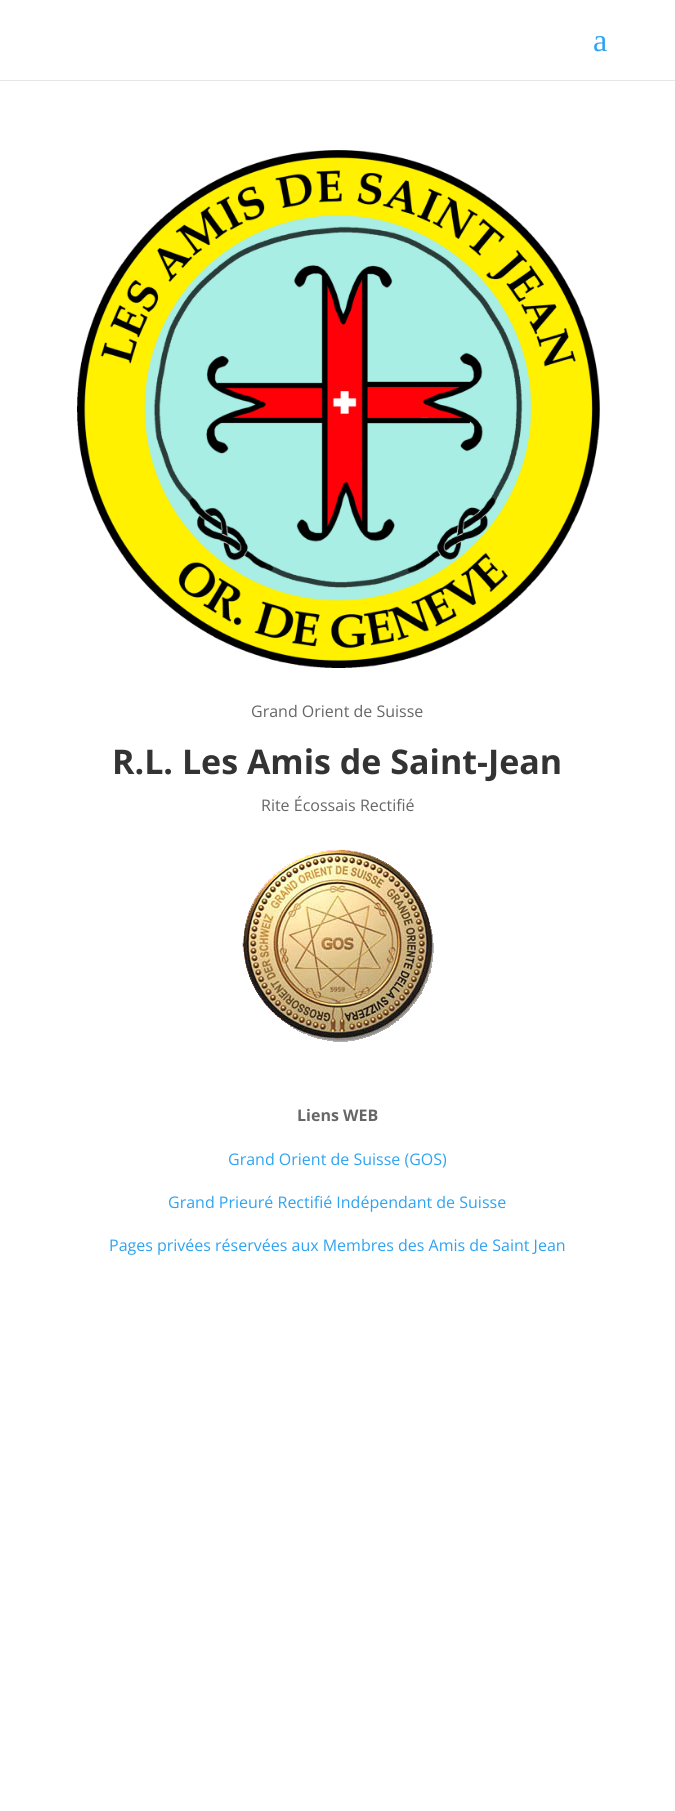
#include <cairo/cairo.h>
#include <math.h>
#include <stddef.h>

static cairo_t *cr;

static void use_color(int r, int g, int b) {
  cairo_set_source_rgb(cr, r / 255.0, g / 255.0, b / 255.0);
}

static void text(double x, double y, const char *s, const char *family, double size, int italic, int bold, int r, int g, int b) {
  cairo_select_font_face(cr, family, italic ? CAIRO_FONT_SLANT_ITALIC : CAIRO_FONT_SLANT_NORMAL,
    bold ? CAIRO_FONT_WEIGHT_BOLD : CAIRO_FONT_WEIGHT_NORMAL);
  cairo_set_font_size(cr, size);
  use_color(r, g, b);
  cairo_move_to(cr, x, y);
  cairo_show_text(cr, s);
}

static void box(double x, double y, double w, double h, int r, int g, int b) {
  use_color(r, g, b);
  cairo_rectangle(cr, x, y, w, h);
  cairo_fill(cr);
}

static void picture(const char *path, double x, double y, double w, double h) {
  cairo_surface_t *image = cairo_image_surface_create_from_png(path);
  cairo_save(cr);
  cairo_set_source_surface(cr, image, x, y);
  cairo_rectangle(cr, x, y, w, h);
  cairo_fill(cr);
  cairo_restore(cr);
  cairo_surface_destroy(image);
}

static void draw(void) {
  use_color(255, 255, 255);
  cairo_paint(cr);
  box(0, 80, 675, 1, 230, 230, 230);
  picture("img_01.png", 77, 150, 523, 518);
  picture("img_02.png", 242, 849, 192, 193);
  text(593, 51, "a", "Liberation Serif", 32, 0, 0, 46, 163, 242);
  text(251, 717, "Grand Orient de Suisse", "Open Sans", 16, 0, 0, 102, 102, 102);
  text(112, 774, "R.L. Les Amis de Saint-Jean", "Open Sans", 34, 0, 1, 51, 51, 51);
  text(261, 811, "Rite Écossais Rectifié", "Open Sans", 16, 0, 0, 102, 102, 102);
  text(297, 1121, "Liens WEB", "Open Sans", 16, 0, 1, 102, 102, 102);
  text(228, 1165, "Grand Orient de Suisse (GOS)", "Open Sans", 16, 0, 0, 46, 163, 242);
  text(168, 1208, "Grand Prieuré Rectifié Indépendant de Suisse", "Open Sans", 16, 0, 0, 46, 163, 242);
  text(109, 1251, "Pages privées réservées aux Membres des Amis de Saint Jean", "Open Sans", 16, 0, 0, 46, 163, 242);
}

int main(void) {
  cairo_surface_t *surface = cairo_image_surface_create(CAIRO_FORMAT_RGB24, 675, 1811);
  cr = cairo_create(surface);
  cairo_font_options_t *options = cairo_font_options_create();
  cairo_font_options_set_hint_metrics(options, CAIRO_HINT_METRICS_OFF);
  cairo_font_options_set_hint_style(options, CAIRO_HINT_STYLE_NONE);
  cairo_set_font_options(cr, options);
  cairo_set_miter_limit(cr, 4);
  draw();
  cairo_surface_write_to_png(surface, "out.png");
  cairo_font_options_destroy(options);
  cairo_destroy(cr);
  cairo_surface_destroy(surface);
  return 0;
}
